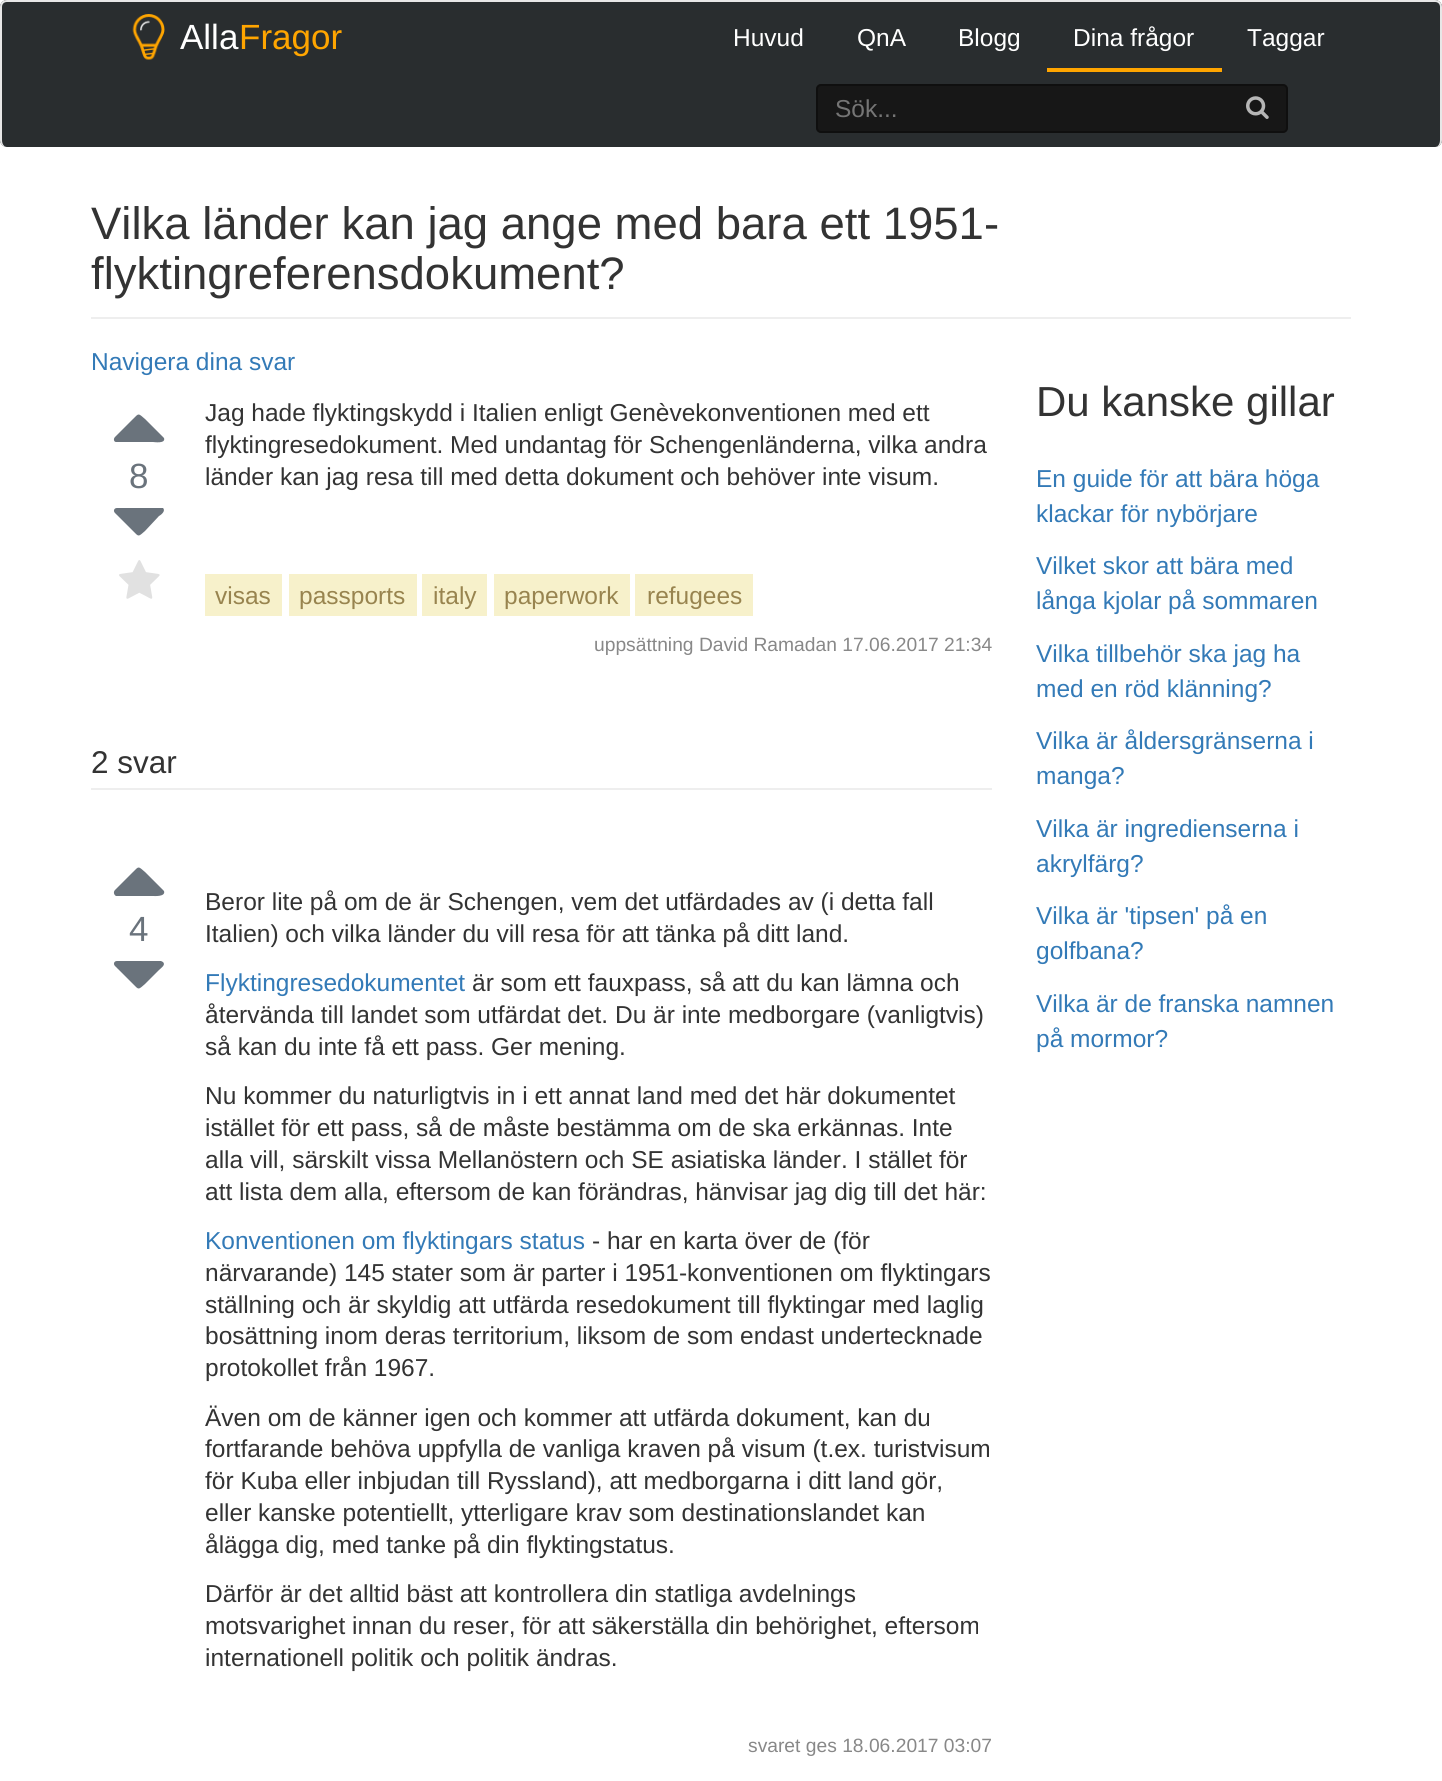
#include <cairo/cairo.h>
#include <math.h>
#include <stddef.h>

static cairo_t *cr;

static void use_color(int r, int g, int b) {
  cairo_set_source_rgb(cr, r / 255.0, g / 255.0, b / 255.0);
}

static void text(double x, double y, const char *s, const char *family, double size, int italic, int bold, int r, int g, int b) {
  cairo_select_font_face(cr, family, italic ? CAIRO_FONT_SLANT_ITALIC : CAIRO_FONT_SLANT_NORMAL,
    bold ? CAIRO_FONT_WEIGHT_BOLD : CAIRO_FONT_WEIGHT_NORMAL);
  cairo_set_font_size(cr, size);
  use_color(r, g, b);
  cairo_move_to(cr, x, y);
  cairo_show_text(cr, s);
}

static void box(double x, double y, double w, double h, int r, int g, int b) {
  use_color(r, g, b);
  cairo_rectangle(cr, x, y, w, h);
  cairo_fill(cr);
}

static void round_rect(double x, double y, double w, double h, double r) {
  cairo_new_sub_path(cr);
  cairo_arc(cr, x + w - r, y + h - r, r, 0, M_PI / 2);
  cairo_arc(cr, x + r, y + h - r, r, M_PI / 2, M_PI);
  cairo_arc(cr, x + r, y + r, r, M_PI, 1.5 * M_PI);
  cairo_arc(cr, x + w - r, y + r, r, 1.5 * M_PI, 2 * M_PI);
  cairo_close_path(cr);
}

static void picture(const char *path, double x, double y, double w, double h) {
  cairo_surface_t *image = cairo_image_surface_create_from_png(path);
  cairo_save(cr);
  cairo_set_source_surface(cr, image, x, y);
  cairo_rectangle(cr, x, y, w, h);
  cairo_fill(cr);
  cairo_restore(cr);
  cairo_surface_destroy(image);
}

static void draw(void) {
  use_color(255, 255, 255);
  cairo_paint(cr);
  use_color(41, 45, 47);
  round_rect(0, 0, 1442, 147, 7);
  cairo_fill(cr);
  use_color(231, 231, 231);
  cairo_set_fill_rule(cr, CAIRO_FILL_RULE_EVEN_ODD);
  cairo_new_path(cr);
  cairo_move_to(cr, 7, 0);
  cairo_line_to(cr, 1435, 0);
  cairo_curve_to(cr, 1439, 0, 1442, 3, 1442, 7);
  cairo_line_to(cr, 1442, 140);
  cairo_curve_to(cr, 1442, 144, 1439, 147, 1435, 147);
  cairo_line_to(cr, 7, 147);
  cairo_curve_to(cr, 3, 147, 0, 144, 0, 140);
  cairo_line_to(cr, 0, 7);
  cairo_curve_to(cr, 0, 3, 3, 0, 7, 0);
  cairo_close_path(cr);
  cairo_move_to(cr, 7, 2);
  cairo_line_to(cr, 1435, 2);
  cairo_curve_to(cr, 1438, 2, 1440, 4, 1440, 7);
  cairo_line_to(cr, 1440, 140);
  cairo_curve_to(cr, 1440, 144, 1438, 147, 1435, 147);
  cairo_line_to(cr, 7, 147);
  cairo_curve_to(cr, 4, 147, 2, 144, 2, 140);
  cairo_line_to(cr, 2, 7);
  cairo_curve_to(cr, 2, 4, 4, 2, 7, 2);
  cairo_close_path(cr);
  cairo_fill(cr);
  picture("img_01.png", 132, 14, 33, 46);
  box(1047, 68, 175, 4, 255, 165, 0);
  use_color(23, 23, 23);
  round_rect(816, 84, 472, 49, 5);
  cairo_fill(cr);
  round_rect(817, 85, 470, 47, 4);
  cairo_set_source_rgba(cr, 0, 0, 0, 0.36);
  cairo_stroke(cr);
  picture("img_02.png", 1246, 96, 23, 23);
  box(91, 317, 1260, 2, 238, 238, 238);
  use_color(106, 115, 124);
  cairo_set_fill_rule(cr, CAIRO_FILL_RULE_WINDING);
  cairo_new_path(cr);
  cairo_move_to(cr, 163, 437);
  cairo_line_to(cr, 164, 438);
  cairo_curve_to(cr, 166, 444, 154, 442, 153, 442);
  cairo_line_to(cr, 116, 442);
  cairo_curve_to(cr, 114, 442, 113, 439, 115, 437);
  cairo_line_to(cr, 133, 419);
  cairo_curve_to(cr, 139, 413, 138, 413, 145, 419);
  cairo_close_path(cr);
  cairo_fill(cr);
  cairo_new_path(cr);
  cairo_move_to(cr, 163, 508);
  cairo_curve_to(cr, 166, 511, 161, 515, 159, 516);
  cairo_line_to(cr, 145, 531);
  cairo_curve_to(cr, 138, 537, 139, 537, 133, 531);
  cairo_line_to(cr, 115, 513);
  cairo_curve_to(cr, 113, 511, 114, 508, 117, 508);
  cairo_line_to(cr, 161, 508);
  cairo_close_path(cr);
  cairo_fill(cr);
  picture("img_03.png", 119, 560, 41, 39);
  box(205, 574, 77, 42, 247, 241, 203);
  box(289, 574, 128, 42, 247, 241, 203);
  box(422, 574, 65, 42, 247, 241, 203);
  box(494, 574, 136, 42, 247, 241, 203);
  box(635, 574, 118, 42, 247, 241, 203);
  box(91, 788, 901, 2, 238, 238, 238);
  use_color(106, 115, 124);
  cairo_new_path(cr);
  cairo_move_to(cr, 163, 890);
  cairo_line_to(cr, 164, 891);
  cairo_curve_to(cr, 166, 897, 154, 896, 153, 896);
  cairo_line_to(cr, 116, 896);
  cairo_curve_to(cr, 114, 895, 113, 892, 115, 890);
  cairo_line_to(cr, 133, 872);
  cairo_curve_to(cr, 139, 866, 138, 866, 145, 872);
  cairo_close_path(cr);
  cairo_fill(cr);
  cairo_new_path(cr);
  cairo_move_to(cr, 163, 962);
  cairo_curve_to(cr, 166, 965, 161, 968, 159, 970);
  cairo_line_to(cr, 145, 984);
  cairo_curve_to(cr, 138, 990, 139, 990, 133, 984);
  cairo_line_to(cr, 115, 966);
  cairo_curve_to(cr, 113, 964, 114, 961, 117, 961);
  cairo_line_to(cr, 161, 961);
  cairo_close_path(cr);
  cairo_fill(cr);
  text(180, 49, "Alla", "Liberation Sans", 35, 0, 0, 255, 255, 255);
  text(239, 49, "Fragor", "Liberation Sans", 35, 0, 0, 255, 165, 0);
  text(733, 46, "Huvud", "Liberation Sans", 24.5, 0, 0, 255, 255, 255);
  text(857, 46, "QnA", "Liberation Sans", 24.5, 0, 0, 255, 255, 255);
  text(958, 46, "Blogg", "Liberation Sans", 24.5, 0, 0, 255, 255, 255);
  text(1073, 46, "Dina frågor", "Liberation Sans", 24.5, 0, 0, 255, 255, 255);
  text(1247, 46, "Taggar", "Liberation Sans", 24.5, 0, 0, 255, 255, 255);
  text(835, 117, "Sök...", "Liberation Sans", 24.5, 0, 0, 117, 117, 117);
  text(91, 239, "Vilka länder kan jag ange med bara ett 1951-", "Liberation Sans", 45.5, 0, 0, 51, 51, 51);
  text(91, 289, "flyktingreferensdokument?", "Liberation Sans", 45.5, 0, 0, 51, 51, 51);
  text(91, 370, "Navigera dina svar", "Liberation Sans", 24.5, 0, 0, 51, 122, 183);
  text(129, 488, "8", "Liberation Sans", 35, 0, 0, 106, 115, 124);
  text(205, 421, "Jag hade flyktingskydd i Italien enligt Genèvekonventionen med ett", "Liberation Sans", 24.5, 0, 0, 51, 51, 51);
  text(205, 453, "flyktingresedokument. Med undantag för Schengenländerna, vilka andra", "Liberation Sans", 24.5, 0, 0, 51, 51, 51);
  text(205, 485, "länder kan jag resa till med detta dokument och behöver inte visum.", "Liberation Sans", 24.5, 0, 0, 51, 51, 51);
  text(215, 604, "visas", "Liberation Sans", 24.5, 0, 0, 152, 132, 79);
  text(299, 604, "passports", "Liberation Sans", 24.5, 0, 0, 152, 132, 79);
  text(433, 604, "italy", "Liberation Sans", 24.5, 0, 0, 152, 132, 79);
  text(504, 604, "paperwork", "Liberation Sans", 24.5, 0, 0, 152, 132, 79);
  text(647, 604, "refugees", "Liberation Sans", 24.5, 0, 0, 152, 132, 79);
  text(594, 651, "uppsättning David Ramadan 17.06.2017 21:34", "Liberation Sans", 19.25, 0, 0, 136, 136, 136);
  text(91, 773, "2 svar", "Liberation Sans", 31.5, 0, 0, 51, 51, 51);
  text(129, 941, "4", "Liberation Sans", 35, 0, 0, 106, 115, 124);
  text(205, 910, "Beror lite på om de är Schengen, vem det utfärdades av (i detta fall", "Liberation Sans", 24.5, 0, 0, 51, 51, 51);
  text(205, 942, "Italien) och vilka länder du vill resa för att tänka på ditt land.", "Liberation Sans", 24.5, 0, 0, 51, 51, 51);
  text(205, 991, "Flyktingresedokumentet", "Liberation Sans", 24.5, 0, 0, 51, 122, 183);
  text(472, 991, "är som ett fauxpass, så att du kan lämna och", "Liberation Sans", 24.5, 0, 0, 51, 51, 51);
  text(205, 1023, "återvända till landet som utfärdat det. Du är inte medborgare (vanligtvis)", "Liberation Sans", 24.5, 0, 0, 51, 51, 51);
  text(205, 1055, "så kan du inte få ett pass. Ger mening.", "Liberation Sans", 24.5, 0, 0, 51, 51, 51);
  text(205, 1104, "Nu kommer du naturligtvis in i ett annat land med det här dokumentet", "Liberation Sans", 24.5, 0, 0, 51, 51, 51);
  text(205, 1136, "istället för ett pass, så de måste bestämma om de ska erkännas. Inte", "Liberation Sans", 24.5, 0, 0, 51, 51, 51);
  text(205, 1168, "alla vill, särskilt vissa Mellanöstern och SE asiatiska länder. I stället för", "Liberation Sans", 24.5, 0, 0, 51, 51, 51);
  text(205, 1200, "att lista dem alla, eftersom de kan förändras, hänvisar jag dig till det här:", "Liberation Sans", 24.5, 0, 0, 51, 51, 51);
  text(205, 1249, "Konventionen om flyktingars status", "Liberation Sans", 24.5, 0, 0, 51, 122, 183);
  text(592, 1249, "- har en karta över de (för", "Liberation Sans", 24.5, 0, 0, 51, 51, 51);
  text(205, 1281, "närvarande) 145 stater som är parter i 1951-konventionen om flyktingars", "Liberation Sans", 24.5, 0, 0, 51, 51, 51);
  text(205, 1313, "ställning och är skyldig att utfärda resedokument till flyktingar med laglig", "Liberation Sans", 24.5, 0, 0, 51, 51, 51);
  text(205, 1344, "bosättning inom deras territorium, liksom de som endast undertecknade", "Liberation Sans", 24.5, 0, 0, 51, 51, 51);
  text(205, 1376, "protokollet från 1967.", "Liberation Sans", 24.5, 0, 0, 51, 51, 51);
  text(205, 1426, "Även om de känner igen och kommer att utfärda dokument, kan du", "Liberation Sans", 24.5, 0, 0, 51, 51, 51);
  text(205, 1457, "fortfarande behöva uppfylla de vanliga kraven på visum (t.ex. turistvisum", "Liberation Sans", 24.5, 0, 0, 51, 51, 51);
  text(205, 1489, "för Kuba eller inbjudan till Ryssland), att medborgarna i ditt land gör,", "Liberation Sans", 24.5, 0, 0, 51, 51, 51);
  text(205, 1521, "eller kanske potentiellt, ytterligare krav som destinationslandet kan", "Liberation Sans", 24.5, 0, 0, 51, 51, 51);
  text(205, 1553, "ålägga dig, med tanke på din flyktingstatus.", "Liberation Sans", 24.5, 0, 0, 51, 51, 51);
  text(205, 1602, "Därför är det alltid bäst att kontrollera din statliga avdelnings", "Liberation Sans", 24.5, 0, 0, 51, 51, 51);
  text(205, 1634, "motsvarighet innan du reser, för att säkerställa din behörighet, eftersom", "Liberation Sans", 24.5, 0, 0, 51, 51, 51);
  text(205, 1666, "internationell politik och politik ändras.", "Liberation Sans", 24.5, 0, 0, 51, 51, 51);
  text(748, 1752, "svaret ges 18.06.2017 03:07", "Liberation Sans", 19.25, 0, 0, 136, 136, 136);
  text(1036, 416, "Du kanske gillar", "Liberation Sans", 42, 0, 0, 51, 51, 51);
  text(1036, 487, "En guide för att bära höga", "Liberation Sans", 24.5, 0, 0, 51, 122, 183);
  text(1036, 522, "klackar för nybörjare", "Liberation Sans", 24.5, 0, 0, 51, 122, 183);
  text(1036, 574, "Vilket skor att bära med", "Liberation Sans", 24.5, 0, 0, 51, 122, 183);
  text(1036, 609, "långa kjolar på sommaren", "Liberation Sans", 24.5, 0, 0, 51, 122, 183);
  text(1036, 662, "Vilka tillbehör ska jag ha", "Liberation Sans", 24.5, 0, 0, 51, 122, 183);
  text(1036, 697, "med en röd klänning?", "Liberation Sans", 24.5, 0, 0, 51, 122, 183);
  text(1036, 749, "Vilka är åldersgränserna i", "Liberation Sans", 24.5, 0, 0, 51, 122, 183);
  text(1036, 784, "manga?", "Liberation Sans", 24.5, 0, 0, 51, 122, 183);
  text(1036, 837, "Vilka är ingredienserna i", "Liberation Sans", 24.5, 0, 0, 51, 122, 183);
  text(1036, 872, "akrylfärg?", "Liberation Sans", 24.5, 0, 0, 51, 122, 183);
  text(1036, 924, "Vilka är 'tipsen' på en", "Liberation Sans", 24.5, 0, 0, 51, 122, 183);
  text(1036, 959, "golfbana?", "Liberation Sans", 24.5, 0, 0, 51, 122, 183);
  text(1036, 1012, "Vilka är de franska namnen", "Liberation Sans", 24.5, 0, 0, 51, 122, 183);
  text(1036, 1047, "på mormor?", "Liberation Sans", 24.5, 0, 0, 51, 122, 183);
}

int main(void) {
  cairo_surface_t *surface = cairo_image_surface_create(CAIRO_FORMAT_RGB24, 1442, 1781);
  cr = cairo_create(surface);
  cairo_font_options_t *options = cairo_font_options_create();
  cairo_font_options_set_hint_metrics(options, CAIRO_HINT_METRICS_OFF);
  cairo_font_options_set_hint_style(options, CAIRO_HINT_STYLE_NONE);
  cairo_set_font_options(cr, options);
  cairo_set_miter_limit(cr, 4);
  draw();
  cairo_surface_write_to_png(surface, "out.png");
  cairo_font_options_destroy(options);
  cairo_destroy(cr);
  cairo_surface_destroy(surface);
  return 0;
}
